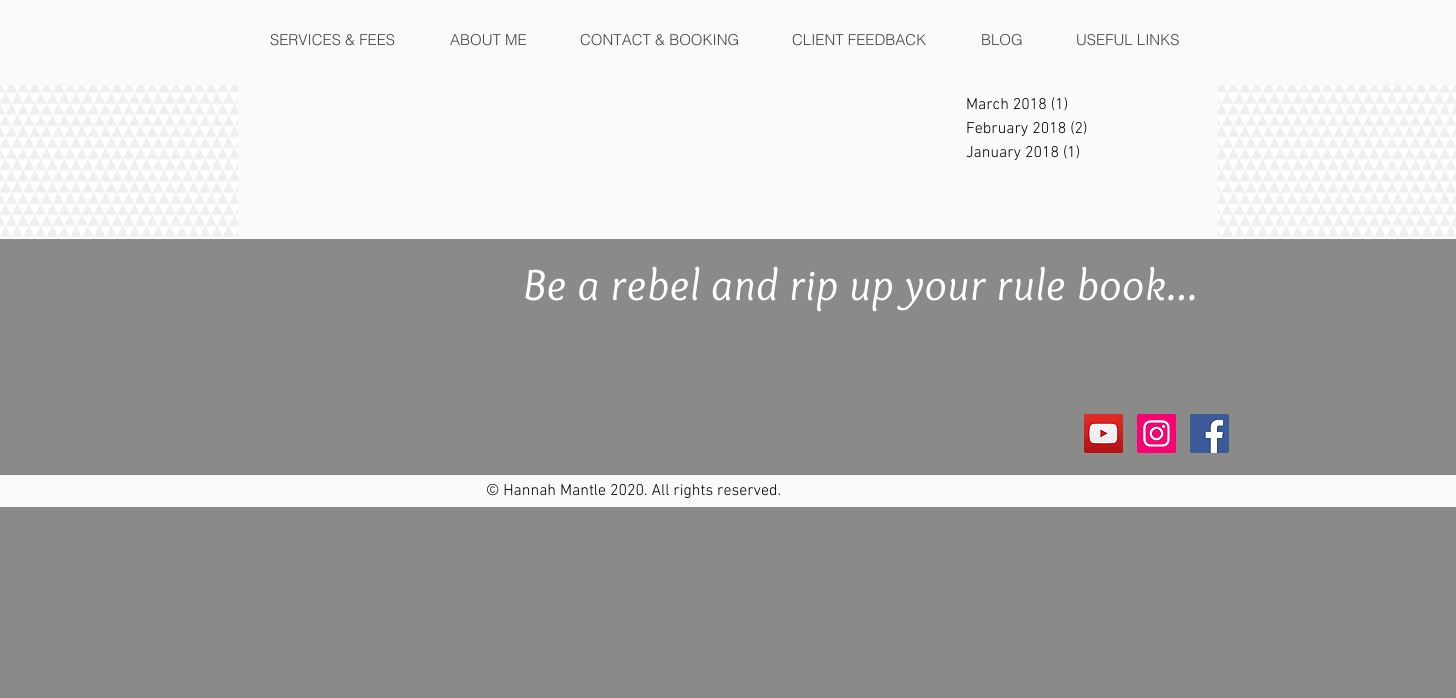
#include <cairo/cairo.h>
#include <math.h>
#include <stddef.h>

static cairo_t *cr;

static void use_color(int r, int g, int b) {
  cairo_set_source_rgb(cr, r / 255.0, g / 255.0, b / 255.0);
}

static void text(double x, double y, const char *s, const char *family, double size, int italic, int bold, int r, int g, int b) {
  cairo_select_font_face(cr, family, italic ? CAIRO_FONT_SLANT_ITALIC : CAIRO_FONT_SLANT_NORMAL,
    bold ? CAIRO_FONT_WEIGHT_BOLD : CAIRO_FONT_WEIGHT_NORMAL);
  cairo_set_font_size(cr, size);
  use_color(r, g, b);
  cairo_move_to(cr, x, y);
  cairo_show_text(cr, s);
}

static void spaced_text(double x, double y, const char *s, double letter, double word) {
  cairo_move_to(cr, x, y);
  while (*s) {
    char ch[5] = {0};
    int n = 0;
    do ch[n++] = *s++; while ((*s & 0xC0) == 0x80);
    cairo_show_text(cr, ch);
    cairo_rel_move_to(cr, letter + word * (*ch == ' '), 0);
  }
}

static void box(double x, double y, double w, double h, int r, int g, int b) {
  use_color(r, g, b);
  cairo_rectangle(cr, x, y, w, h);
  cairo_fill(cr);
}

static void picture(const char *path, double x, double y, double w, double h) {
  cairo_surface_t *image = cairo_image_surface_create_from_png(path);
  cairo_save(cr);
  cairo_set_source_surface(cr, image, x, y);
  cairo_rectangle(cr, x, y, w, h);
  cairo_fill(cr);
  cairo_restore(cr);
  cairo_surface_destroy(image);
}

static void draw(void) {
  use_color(255, 255, 255);
  cairo_paint(cr);
  box(0, 0, 1456, 85, 250, 250, 250);
  picture("img_04.png", 0, 85, 1456, 154);
  box(238, 85, 980, 154, 250, 250, 250);
  box(0, 239, 1456, 459, 138, 138, 136);
  picture("img_01.png", 1084, 414, 39, 39);
  picture("img_02.png", 1137, 414, 39, 39);
  picture("img_03.png", 1190, 414, 39, 39);
  box(0, 475, 1456, 32, 250, 250, 250);
  text(270, 45, "SERVICES & FEES", "helvetica Light", 15, 0, 0, 68, 68, 68);
  text(450, 45, "ABOUT ME", "helvetica Light", 15, 0, 0, 68, 68, 68);
  text(580, 45, "CONTACT & BOOKING", "helvetica Light", 15, 0, 0, 68, 68, 68);
  text(792, 45, "CLIENT FEEDBACK", "helvetica Light", 15, 0, 0, 68, 68, 68);
  text(981, 45, "BLOG", "helvetica Light", 15, 0, 0, 68, 68, 68);
  text(1076, 45, "USEFUL LINKS", "helvetica Light", 15, 0, 0, 68, 68, 68);
  text(966, 109, "March 2018 (1)", "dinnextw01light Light", 16, 0, 0, 0, 0, 0);
  text(966, 133, "February 2018 (2)", "dinnextw01light Light", 16, 0, 0, 0, 0, 0);
  text(966, 157, "January 2018 (1)", "dinnextw01light Light", 16, 0, 0, 0, 0, 0);
  cairo_select_font_face(cr, "Overlock", CAIRO_FONT_SLANT_ITALIC, CAIRO_FONT_WEIGHT_NORMAL);
  cairo_set_font_size(cr, 45);
  use_color(255, 255, 255);
  spaced_text(523, 300, "Be a rebel and rip up your rule book...", 1.35, 0);
  text(486, 495, "© Hannah Mantle 2020. All rights reserved.", "dinnextw01light Light", 16, 0, 0, 0, 0, 0);
}

int main(void) {
  cairo_surface_t *surface = cairo_image_surface_create(CAIRO_FORMAT_RGB24, 1456, 698);
  cr = cairo_create(surface);
  cairo_font_options_t *options = cairo_font_options_create();
  cairo_font_options_set_hint_metrics(options, CAIRO_HINT_METRICS_OFF);
  cairo_font_options_set_hint_style(options, CAIRO_HINT_STYLE_NONE);
  cairo_set_font_options(cr, options);
  cairo_set_miter_limit(cr, 4);
  draw();
  cairo_surface_write_to_png(surface, "out.png");
  cairo_font_options_destroy(options);
  cairo_destroy(cr);
  cairo_surface_destroy(surface);
  return 0;
}
